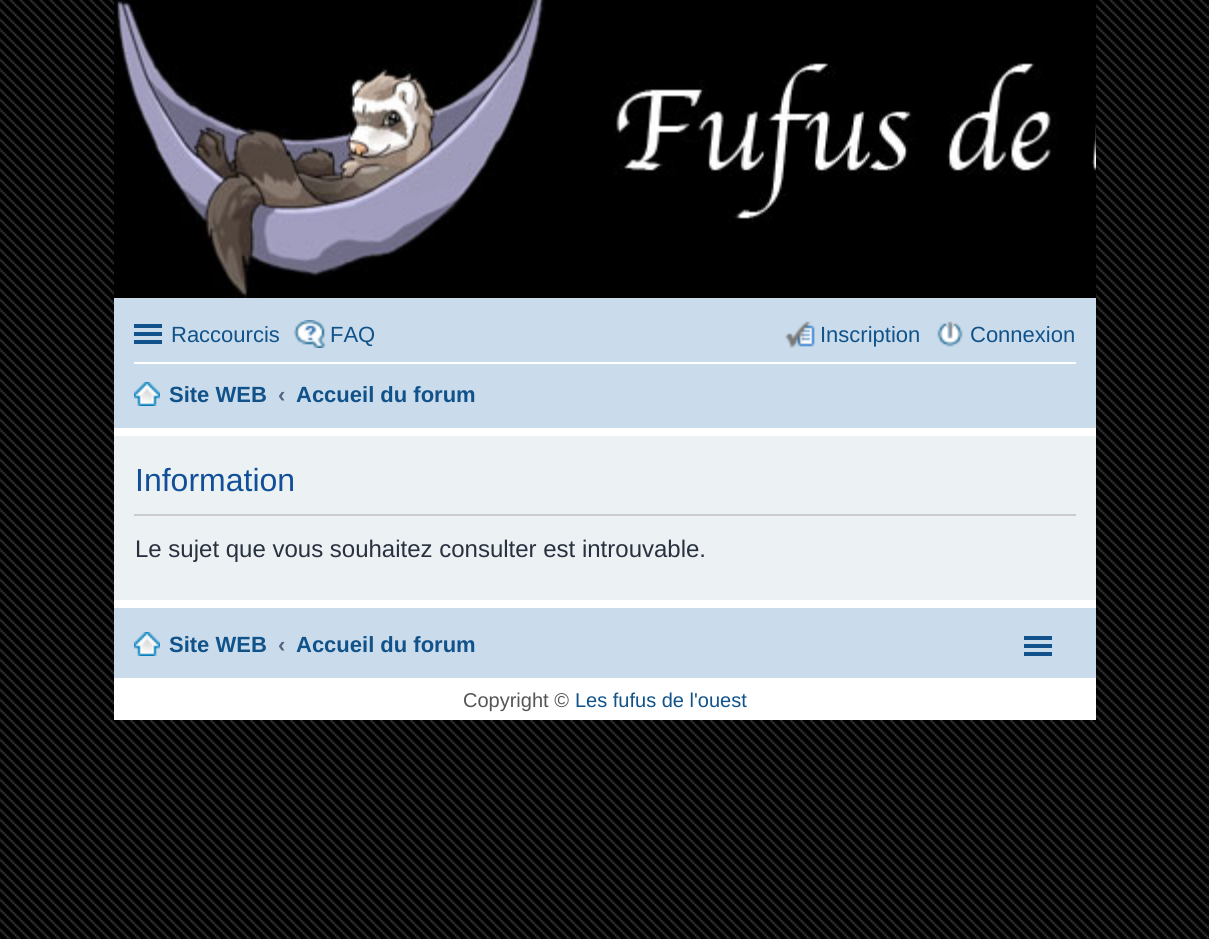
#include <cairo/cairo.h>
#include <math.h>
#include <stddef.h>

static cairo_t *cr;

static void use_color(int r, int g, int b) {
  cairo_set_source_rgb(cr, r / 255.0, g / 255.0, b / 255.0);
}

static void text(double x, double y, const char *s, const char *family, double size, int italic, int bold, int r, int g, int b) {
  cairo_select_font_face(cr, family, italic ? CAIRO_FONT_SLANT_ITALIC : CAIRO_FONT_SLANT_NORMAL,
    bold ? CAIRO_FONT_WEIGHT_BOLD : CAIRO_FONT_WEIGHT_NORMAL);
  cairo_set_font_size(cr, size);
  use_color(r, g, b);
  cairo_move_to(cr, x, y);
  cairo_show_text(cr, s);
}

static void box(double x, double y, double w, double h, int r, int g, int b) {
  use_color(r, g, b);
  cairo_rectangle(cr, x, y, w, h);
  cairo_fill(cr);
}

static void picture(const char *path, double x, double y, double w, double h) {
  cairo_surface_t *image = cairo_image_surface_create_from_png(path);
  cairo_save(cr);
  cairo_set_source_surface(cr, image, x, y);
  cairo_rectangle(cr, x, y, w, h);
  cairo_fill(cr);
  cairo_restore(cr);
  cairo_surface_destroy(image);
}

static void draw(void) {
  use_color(255, 255, 255);
  cairo_paint(cr);
  picture("img_01.png", 0, 0, 1209, 939);
  box(114, 428, 982, 292, 255, 255, 255);
  picture("img_02.png", 114, 0, 982, 298);
  box(114, 298, 982, 130, 202, 220, 235);
  box(134, 324, 28, 4, 16, 82, 137);
  box(134, 332, 28, 4, 16, 82, 137);
  box(134, 340, 28, 4, 16, 82, 137);
  picture("img_03.png", 294, 320, 32, 28);
  picture("img_04.png", 785, 321, 30, 27);
  picture("img_05.png", 937, 321, 26, 26);
  box(134, 362, 942, 2, 255, 255, 255);
  picture("img_06.png", 134, 382, 26, 24);
  box(114, 436, 982, 164, 236, 241, 243);
  box(134, 514, 942, 2, 204, 204, 204);
  box(114, 608, 982, 70, 202, 220, 235);
  picture("img_06.png", 134, 632, 26, 24);
  box(1024, 636, 28, 4, 16, 82, 137);
  box(1024, 644, 28, 4, 16, 82, 137);
  box(1024, 652, 28, 4, 16, 82, 137);
  text(171, 342, "Raccourcis", "Liberation Sans", 22, 0, 0, 16, 82, 137);
  text(330, 342, "FAQ", "Liberation Sans", 22, 0, 0, 16, 82, 137);
  text(820, 342, "Inscription", "Liberation Sans", 22, 0, 0, 16, 82, 137);
  text(970, 342, "Connexion", "Liberation Sans", 22, 0, 0, 16, 82, 137);
  text(169, 402, "Site WEB", "Liberation Sans", 22, 0, 1, 16, 82, 137);
  text(278, 402, "‹", "Liberation Sans", 22, 0, 1, 83, 100, 130);
  text(296, 402, "Accueil du forum", "Liberation Sans", 22, 0, 1, 16, 82, 137);
  text(135, 491, "Information", "Liberation Sans", 32, 0, 0, 17, 80, 152);
  text(135, 557, "Le sujet que vous souhaitez consulter est introuvable.", "Liberation Sans", 24, 0, 0, 40, 49, 63);
  text(169, 652, "Site WEB", "Liberation Sans", 22, 0, 1, 16, 82, 137);
  text(278, 652, "‹", "Liberation Sans", 22, 0, 1, 83, 100, 130);
  text(296, 652, "Accueil du forum", "Liberation Sans", 22, 0, 1, 16, 82, 137);
  text(463, 707, "Copyright ©", "Liberation Sans", 20, 0, 0, 85, 85, 85);
  text(575, 707, "Les fufus de l'ouest", "Liberation Sans", 20, 0, 0, 16, 82, 137);
}

int main(void) {
  cairo_surface_t *surface = cairo_image_surface_create(CAIRO_FORMAT_RGB24, 1209, 939);
  cr = cairo_create(surface);
  cairo_font_options_t *options = cairo_font_options_create();
  cairo_font_options_set_hint_metrics(options, CAIRO_HINT_METRICS_OFF);
  cairo_font_options_set_hint_style(options, CAIRO_HINT_STYLE_NONE);
  cairo_set_font_options(cr, options);
  cairo_set_miter_limit(cr, 4);
  draw();
  cairo_surface_write_to_png(surface, "out.png");
  cairo_font_options_destroy(options);
  cairo_destroy(cr);
  cairo_surface_destroy(surface);
  return 0;
}
